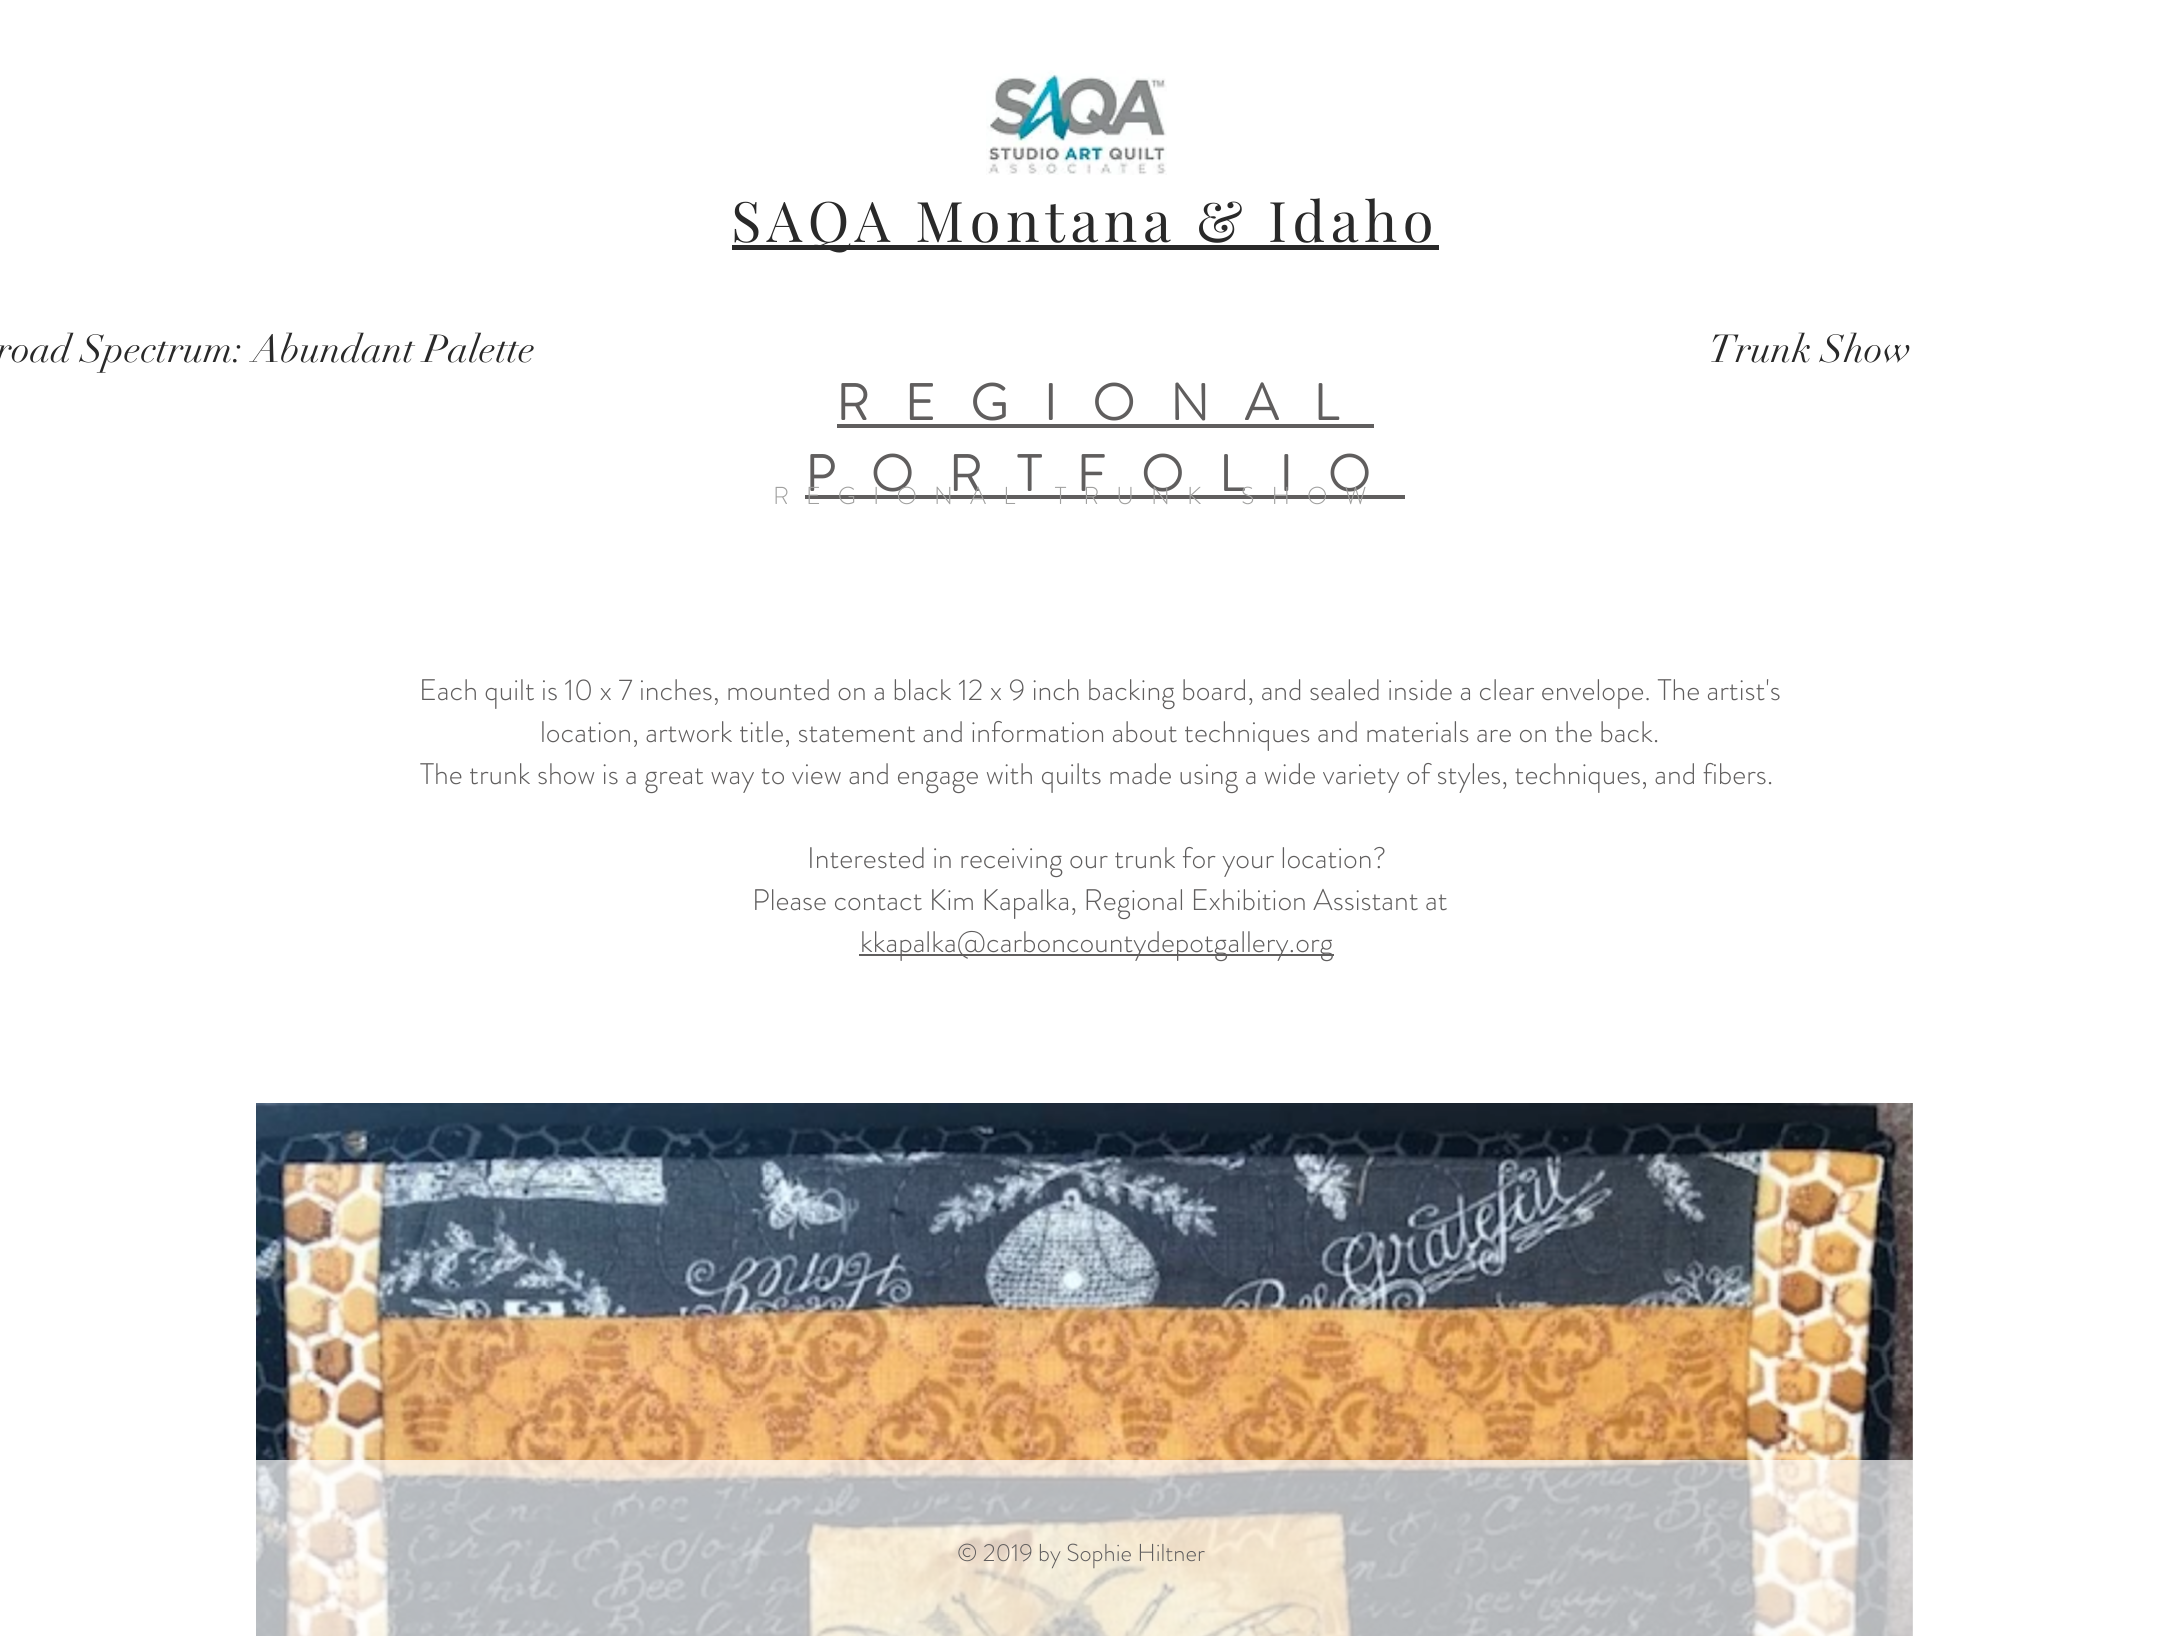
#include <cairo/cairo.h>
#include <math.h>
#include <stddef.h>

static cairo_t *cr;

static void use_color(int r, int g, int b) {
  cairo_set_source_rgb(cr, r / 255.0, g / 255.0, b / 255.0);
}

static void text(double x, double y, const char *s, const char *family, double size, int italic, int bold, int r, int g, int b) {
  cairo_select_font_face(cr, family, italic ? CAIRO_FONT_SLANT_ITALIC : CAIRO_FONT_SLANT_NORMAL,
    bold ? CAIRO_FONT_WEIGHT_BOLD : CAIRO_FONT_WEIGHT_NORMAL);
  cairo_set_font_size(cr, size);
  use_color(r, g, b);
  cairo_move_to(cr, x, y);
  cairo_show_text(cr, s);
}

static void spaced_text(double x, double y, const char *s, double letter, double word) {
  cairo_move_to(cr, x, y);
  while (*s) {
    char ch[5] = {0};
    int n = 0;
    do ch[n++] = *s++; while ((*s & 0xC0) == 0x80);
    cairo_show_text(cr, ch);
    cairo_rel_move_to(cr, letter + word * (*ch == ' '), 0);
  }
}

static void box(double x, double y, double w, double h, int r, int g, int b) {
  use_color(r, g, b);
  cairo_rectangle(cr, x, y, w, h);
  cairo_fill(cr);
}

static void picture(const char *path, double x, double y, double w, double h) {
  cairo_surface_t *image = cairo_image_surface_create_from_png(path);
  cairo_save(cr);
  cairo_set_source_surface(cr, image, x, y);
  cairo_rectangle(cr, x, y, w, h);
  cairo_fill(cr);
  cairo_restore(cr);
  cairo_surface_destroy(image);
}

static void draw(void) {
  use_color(255, 255, 255);
  cairo_paint(cr);
  picture("img_01.png", 986, 70, 181, 105);
  box(732, 245, 707, 5, 41, 41, 41);
  box(837, 424, 537, 4, 96, 94, 94);
  box(805, 495, 600, 4, 96, 94, 94);
  box(859, 954, 475, 2, 96, 94, 94);
  box(1912, 1103, 1, 533, 160, 160, 159);
  picture("img_02.png", 256, 1103, 1657, 533);
  cairo_set_source_rgba(cr, 1, 1, 1, 0.7);
  cairo_rectangle(cr, 256, 1460, 1657, 176);
  cairo_fill(cr);
  cairo_select_font_face(cr, "Playfair Display", CAIRO_FONT_SLANT_NORMAL, CAIRO_FONT_WEIGHT_NORMAL);
  cairo_set_font_size(cr, 56);
  use_color(41, 41, 41);
  spaced_text(731, 242, "SAQA Montana & Idaho", 5.6, 0);
  text(-4, 362, "road Spectrum: Abundant Palette", "didot", 38.5, 0, 0, 41, 41, 41);
  text(1709, 362, "Trunk Show", "didot", 38.5, 0, 0, 41, 41, 41);
  cairo_select_font_face(cr, "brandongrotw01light", CAIRO_FONT_SLANT_NORMAL, CAIRO_FONT_WEIGHT_BOLD);
  cairo_set_font_size(cr, 50.75);
  use_color(96, 94, 94);
  spaced_text(836, 420, "REGIONAL", 35.5, 0);
  spaced_text(805, 491, "PORTFOLIO", 35.5, 0);
  cairo_select_font_face(cr, "brandongrotw01light Light", CAIRO_FONT_SLANT_NORMAL, CAIRO_FONT_WEIGHT_NORMAL);
  cairo_set_font_size(cr, 24.5);
  use_color(160, 160, 159);
  spaced_text(773, 504, "REGIONAL TRUNK SHOW", 17.1, 0);
  text(419, 700, "Each quilt is 10 x 7 inches, mounted on a black 12 x 9 inch backing board, and sealed inside a clear envelope. The artist's", "brandongrotw01light Light", 29.75, 0, 0, 96, 94, 94);
  text(540, 742, "location, artwork title, statement and information about techniques and materials are on the back.", "brandongrotw01light Light", 29.75, 0, 0, 96, 94, 94);
  text(420, 784, "The trunk show is a great way to view and engage with quilts made using a wide variety of styles, techniques, and fibers.", "brandongrotw01light Light", 29.75, 0, 0, 96, 94, 94);
  text(807, 868, "Interested in receiving our trunk for your location?", "brandongrotw01light Light", 29.75, 0, 0, 96, 94, 94);
  text(752, 910, "Please contact Kim Kapalka, Regional Exhibition Assistant at", "brandongrotw01light Light", 29.75, 0, 0, 96, 94, 94);
  text(860, 952, "kkapalka@carboncountydepotgallery.org", "brandongrotw01light Light", 29.75, 0, 0, 96, 94, 94);
  text(957, 1561, "© 2019 by Sophie Hiltner", "brandongrotw01light Light", 24.5, 0, 0, 96, 94, 94);
}

int main(void) {
  cairo_surface_t *surface = cairo_image_surface_create(CAIRO_FORMAT_RGB24, 2168, 1636);
  cr = cairo_create(surface);
  cairo_font_options_t *options = cairo_font_options_create();
  cairo_font_options_set_hint_metrics(options, CAIRO_HINT_METRICS_OFF);
  cairo_font_options_set_hint_style(options, CAIRO_HINT_STYLE_NONE);
  cairo_set_font_options(cr, options);
  cairo_set_miter_limit(cr, 4);
  draw();
  cairo_surface_write_to_png(surface, "out.png");
  cairo_font_options_destroy(options);
  cairo_destroy(cr);
  cairo_surface_destroy(surface);
  return 0;
}
